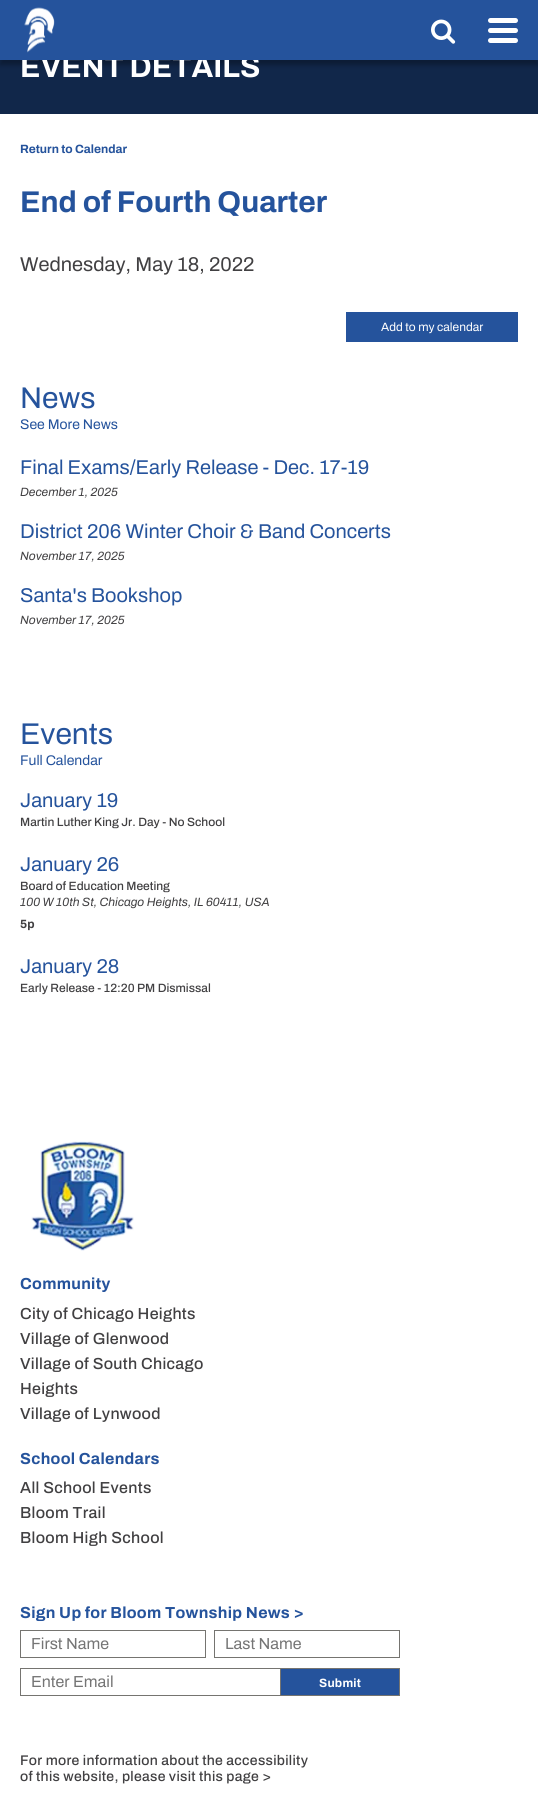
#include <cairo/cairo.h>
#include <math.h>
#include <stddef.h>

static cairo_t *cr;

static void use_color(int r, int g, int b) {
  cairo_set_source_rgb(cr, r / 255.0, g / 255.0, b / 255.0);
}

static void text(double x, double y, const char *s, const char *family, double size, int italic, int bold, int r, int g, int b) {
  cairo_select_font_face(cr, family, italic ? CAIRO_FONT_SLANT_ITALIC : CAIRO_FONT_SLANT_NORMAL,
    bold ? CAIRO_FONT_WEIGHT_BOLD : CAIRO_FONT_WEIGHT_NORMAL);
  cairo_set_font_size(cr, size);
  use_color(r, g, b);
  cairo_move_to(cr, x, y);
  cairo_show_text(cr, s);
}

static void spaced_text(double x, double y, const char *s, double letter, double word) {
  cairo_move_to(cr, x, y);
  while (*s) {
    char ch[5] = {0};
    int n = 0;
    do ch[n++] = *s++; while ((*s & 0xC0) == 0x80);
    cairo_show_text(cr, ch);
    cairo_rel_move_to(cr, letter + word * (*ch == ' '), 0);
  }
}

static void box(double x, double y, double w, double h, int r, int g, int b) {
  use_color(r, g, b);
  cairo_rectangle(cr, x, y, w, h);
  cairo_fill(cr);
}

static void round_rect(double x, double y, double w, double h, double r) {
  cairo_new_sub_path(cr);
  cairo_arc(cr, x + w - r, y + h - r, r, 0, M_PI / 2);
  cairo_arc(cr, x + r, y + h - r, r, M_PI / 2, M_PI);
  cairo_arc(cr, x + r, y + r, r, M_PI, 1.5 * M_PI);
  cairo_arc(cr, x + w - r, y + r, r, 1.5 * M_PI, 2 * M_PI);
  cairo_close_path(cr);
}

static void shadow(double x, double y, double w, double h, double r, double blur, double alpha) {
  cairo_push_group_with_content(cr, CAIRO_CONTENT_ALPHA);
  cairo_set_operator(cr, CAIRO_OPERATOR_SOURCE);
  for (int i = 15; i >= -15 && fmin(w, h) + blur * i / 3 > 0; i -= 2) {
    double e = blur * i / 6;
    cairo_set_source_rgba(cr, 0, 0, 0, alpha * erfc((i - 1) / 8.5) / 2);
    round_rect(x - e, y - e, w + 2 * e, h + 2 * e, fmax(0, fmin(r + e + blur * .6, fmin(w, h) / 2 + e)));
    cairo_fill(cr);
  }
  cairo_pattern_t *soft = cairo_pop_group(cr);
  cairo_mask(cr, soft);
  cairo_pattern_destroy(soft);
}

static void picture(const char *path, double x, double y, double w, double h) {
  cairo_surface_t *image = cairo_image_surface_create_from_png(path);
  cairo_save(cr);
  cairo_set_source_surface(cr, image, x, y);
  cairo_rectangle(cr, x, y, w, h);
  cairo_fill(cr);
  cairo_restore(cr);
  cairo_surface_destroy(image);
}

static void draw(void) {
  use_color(255, 255, 255);
  cairo_paint(cr);
  box(0, 60, 538, 54, 17, 39, 74);
  use_color(0, 0, 0);
  shadow(0, 5, 538, 60, 0, 2.5, 0.3);
  box(346, 312, 172, 30, 37, 83, 156);
  picture("img_03.png", 31, 1141, 103, 110);
  cairo_rectangle(cr, 20.5, 1630.5, 185, 27);
  use_color(117, 116, 112);
  cairo_set_line_width(cr, 1);
  cairo_stroke(cr);
  cairo_rectangle(cr, 214.5, 1630.5, 185, 27);
  cairo_stroke(cr);
  cairo_rectangle(cr, 20.5, 1668.5, 269, 27);
  cairo_stroke(cr);
  use_color(37, 83, 156);
  cairo_rectangle(cr, 280.5, 1668.5, 119, 27);
  cairo_fill_preserve(cr);
  use_color(117, 116, 112);
  cairo_stroke(cr);
  text(20, 77, "EVENT DETAILS", "Archivo", 30, 0, 1, 255, 255, 255);
  box(0, 0, 538, 60, 37, 83, 156);
  picture("img_01.png", 24, 7, 31, 46);
  use_color(255, 255, 255);
  round_rect(488, 38, 30, 5, 2.5);
  cairo_fill(cr);
  round_rect(488, 28, 30, 5, 2.5);
  cairo_fill(cr);
  round_rect(488, 18, 30, 5, 2.5);
  cairo_fill(cr);
  picture("img_02.png", 431, 19, 25, 25);
  text(20, 153, "Return to Calendar", "Archivo", 12, 0, 1, 37, 83, 156);
  text(20, 212, "End of Fourth Quarter", "Archivo", 30, 0, 1, 37, 83, 156);
  text(20, 271, "Wednesday, May 18, 2022", "Archivo", 20, 0, 0, 65, 64, 66);
  text(381, 331, "Add to my calendar", "Archivo", 12, 0, 0, 255, 255, 255);
  text(20, 408, "News", "Archivo", 30, 0, 0, 37, 83, 156);
  text(20, 429, "See More News", "Archivo", 14, 0, 0, 37, 83, 156);
  text(20, 474, "Final Exams/Early Release - Dec. 17-19", "Archivo", 20, 0, 0, 37, 83, 156);
  text(20, 496, "December 1, 2025", "Archivo SemiBold", 12, 1, 0, 65, 64, 66);
  text(20, 538, "District 206 Winter Choir & Band Concerts", "Archivo", 20, 0, 0, 37, 83, 156);
  text(20, 560, "November 17, 2025", "Archivo SemiBold", 12, 1, 0, 65, 64, 66);
  text(20, 602, "Santa's Bookshop", "Archivo", 20, 0, 0, 37, 83, 156);
  text(20, 624, "November 17, 2025", "Archivo SemiBold", 12, 1, 0, 65, 64, 66);
  text(20, 744, "Events", "Archivo", 30, 0, 0, 37, 83, 156);
  text(20, 765, "Full Calendar", "Archivo", 14, 0, 0, 37, 83, 156);
  text(20, 807, "January 19", "Archivo", 20, 0, 0, 37, 83, 156);
  text(20, 826, "Martin Luther King Jr. Day - No School", "Archivo Medium", 12, 0, 0, 65, 64, 66);
  text(20, 871, "January 26", "Archivo", 20, 0, 0, 37, 83, 156);
  text(20, 890, "Board of Education Meeting", "Archivo Medium", 12, 0, 0, 65, 64, 66);
  text(20, 906, "100 W 10th St, Chicago Heights, IL 60411, USA", "Archivo SemiBold", 12, 1, 0, 65, 64, 66);
  text(20, 928, "5p", "Archivo", 12, 0, 1, 65, 64, 66);
  text(20, 973, "January 28", "Archivo", 20, 0, 0, 37, 83, 156);
  text(20, 992, "Early Release - 12:20 PM Dismissal", "Archivo Medium", 12, 0, 0, 65, 64, 66);
  cairo_select_font_face(cr, "Archivo", CAIRO_FONT_SLANT_NORMAL, CAIRO_FONT_WEIGHT_BOLD);
  cairo_set_font_size(cr, 16);
  use_color(37, 83, 156);
  spaced_text(20, 1289, "Community", 0.3, 0);
  cairo_select_font_face(cr, "Archivo Medium", CAIRO_FONT_SLANT_NORMAL, CAIRO_FONT_WEIGHT_NORMAL);
  use_color(65, 64, 66);
  spaced_text(20, 1319, "City of Chicago Heights", 0.3, 0);
  spaced_text(20, 1344, "Village of Glenwood", 0.3, 0);
  spaced_text(20, 1369, "Village of South Chicago", 0.3, 0);
  spaced_text(20, 1394, "Heights", 0.3, 0);
  spaced_text(20, 1419, "Village of Lynwood", 0.3, 0);
  cairo_select_font_face(cr, "Archivo", CAIRO_FONT_SLANT_NORMAL, CAIRO_FONT_WEIGHT_BOLD);
  use_color(37, 83, 156);
  spaced_text(20, 1464, "School Calendars", 0.3, 0);
  cairo_select_font_face(cr, "Archivo Medium", CAIRO_FONT_SLANT_NORMAL, CAIRO_FONT_WEIGHT_NORMAL);
  use_color(65, 64, 66);
  spaced_text(20, 1493, "All School Events", 0.3, 0);
  spaced_text(20, 1518, "Bloom Trail", 0.3, 0);
  spaced_text(20, 1543, "Bloom High School", 0.3, 0);
  cairo_select_font_face(cr, "Archivo", CAIRO_FONT_SLANT_NORMAL, CAIRO_FONT_WEIGHT_BOLD);
  use_color(37, 83, 156);
  spaced_text(20, 1618, "Sign Up for Bloom Township News >", 0.3, 0);
  text(31, 1649, "First Name", "Archivo", 16, 0, 0, 117, 117, 117);
  text(225, 1649, "Last Name", "Archivo", 16, 0, 0, 117, 117, 117);
  text(31, 1687, "Enter Email", "Archivo", 16, 0, 0, 117, 117, 117);
  cairo_select_font_face(cr, "Archivo", CAIRO_FONT_SLANT_NORMAL, CAIRO_FONT_WEIGHT_BOLD);
  cairo_set_font_size(cr, 12);
  use_color(255, 255, 255);
  spaced_text(319, 1687, "Submit", 0.25, 0);
  cairo_select_font_face(cr, "Archivo Medium", CAIRO_FONT_SLANT_NORMAL, CAIRO_FONT_WEIGHT_NORMAL);
  cairo_set_font_size(cr, 14);
  use_color(65, 64, 66);
  spaced_text(20, 1765, "For more information about the accessibility", 0.3, 0);
  spaced_text(20, 1781, "of this website, please visit this page >", 0.3, 0);
}

int main(void) {
  cairo_surface_t *surface = cairo_image_surface_create(CAIRO_FORMAT_RGB24, 538, 1812);
  cr = cairo_create(surface);
  cairo_font_options_t *options = cairo_font_options_create();
  cairo_font_options_set_hint_metrics(options, CAIRO_HINT_METRICS_OFF);
  cairo_font_options_set_hint_style(options, CAIRO_HINT_STYLE_NONE);
  cairo_set_font_options(cr, options);
  cairo_set_miter_limit(cr, 4);
  draw();
  cairo_surface_write_to_png(surface, "out.png");
  cairo_font_options_destroy(options);
  cairo_destroy(cr);
  cairo_surface_destroy(surface);
  return 0;
}
